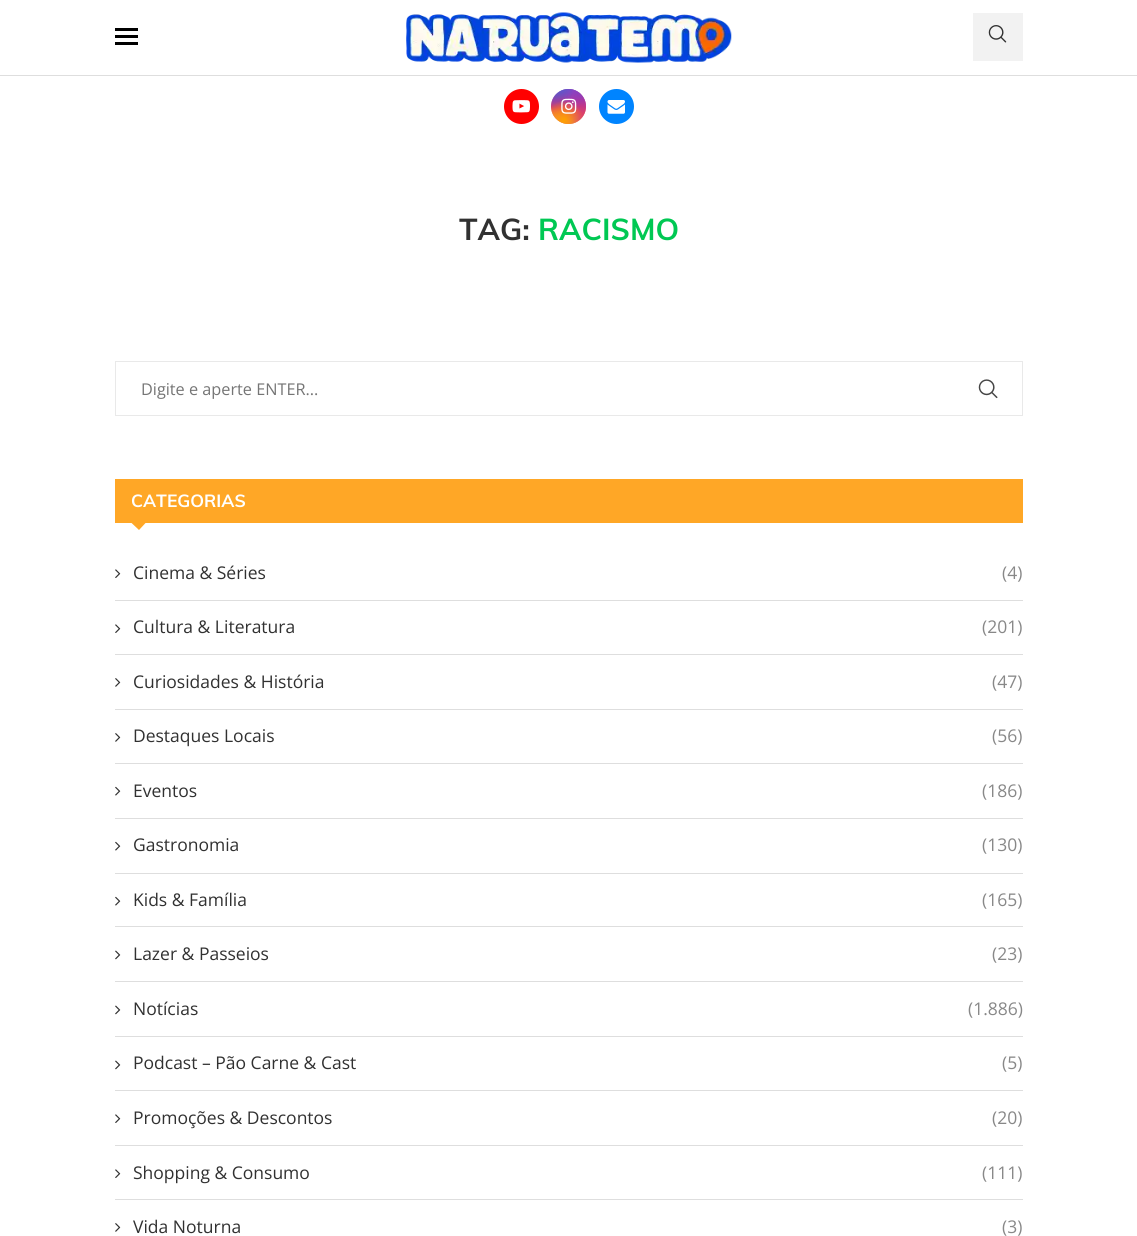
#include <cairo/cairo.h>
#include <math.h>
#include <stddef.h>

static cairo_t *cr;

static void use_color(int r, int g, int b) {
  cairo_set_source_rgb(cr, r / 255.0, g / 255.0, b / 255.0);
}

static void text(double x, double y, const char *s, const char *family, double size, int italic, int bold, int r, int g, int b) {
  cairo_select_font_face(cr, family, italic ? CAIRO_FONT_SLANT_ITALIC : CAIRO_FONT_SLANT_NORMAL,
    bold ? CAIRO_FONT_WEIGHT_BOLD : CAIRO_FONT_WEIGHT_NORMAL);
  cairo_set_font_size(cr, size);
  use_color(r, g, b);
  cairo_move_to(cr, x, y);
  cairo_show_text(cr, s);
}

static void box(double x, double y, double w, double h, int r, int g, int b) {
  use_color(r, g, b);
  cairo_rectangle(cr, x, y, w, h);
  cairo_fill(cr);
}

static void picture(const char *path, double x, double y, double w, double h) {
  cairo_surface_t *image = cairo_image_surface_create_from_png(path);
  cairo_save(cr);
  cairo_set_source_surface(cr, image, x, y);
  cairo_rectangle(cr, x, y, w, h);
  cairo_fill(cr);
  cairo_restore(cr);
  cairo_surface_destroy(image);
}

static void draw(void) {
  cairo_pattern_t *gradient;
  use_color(255, 255, 255);
  cairo_paint(cr);
  box(0, 75, 1137, 1, 222, 222, 222);
  box(115, 28, 23, 3, 0, 0, 0);
  box(115, 35, 23, 3, 0, 0, 0);
  box(115, 42, 23, 3, 0, 0, 0);
  picture("img_01.png", 406, 12, 326, 51);
  box(973, 13, 50, 48, 242, 242, 242);
  picture("img_02.png", 988, 25, 19, 18);
  use_color(255, 0, 0);
  cairo_arc(cr, 521.5, 106.5, 17.5, 0, 2 * M_PI);
  cairo_fill(cr);
  picture("img_03.png", 512, 100, 18, 13);
  gradient = cairo_pattern_create_linear(569, 89, 569, 124);
  cairo_pattern_add_color_stop_rgba(gradient, 0, 0.396, 0.349, 0.792, 1);
  cairo_pattern_add_color_stop_rgba(gradient, 0.3, 0.737, 0.192, 0.561, 1);
  cairo_pattern_add_color_stop_rgba(gradient, 0.5, 0.89, 0.247, 0.373, 1);
  cairo_pattern_add_color_stop_rgba(gradient, 0.7, 0.969, 0.463, 0.22, 1);
  cairo_pattern_add_color_stop_rgba(gradient, 1, 0.996, 0.776, 0.427, 1);
  cairo_set_source(cr, gradient);
  cairo_pattern_destroy(gradient);
  cairo_arc(cr, 568.5, 106.5, 17.5, 0, 2 * M_PI);
  cairo_fill(cr);
  gradient = cairo_pattern_create_radial(586, 124, 0, 586, 124, 49);
  cairo_pattern_add_color_stop_rgba(gradient, 0, 0.831, 0.192, 0.471, 1);
  cairo_pattern_add_color_stop_rgba(gradient, 1, 0.831, 0.192, 0.471, 0);
  cairo_set_source(cr, gradient);
  cairo_pattern_destroy(gradient);
  cairo_arc(cr, 568.5, 106.5, 17.5, 0, 2 * M_PI);
  cairo_fill(cr);
  gradient = cairo_pattern_create_radial(0, 0, 0, 0, 0, 1);
  cairo_pattern_set_matrix(gradient, &(cairo_matrix_t){1.0 / 30, 0, 0, 1.0 / 59, -1.0 * 572 / 30, -1.0 * 82 / 59});
  cairo_pattern_add_color_stop_rgba(gradient, 0, 0.561, 0.267, 0.78, 1);
  cairo_pattern_add_color_stop_rgba(gradient, 0.5, 0.561, 0.267, 0.78, 0);
  cairo_set_source(cr, gradient);
  cairo_pattern_destroy(gradient);
  cairo_arc(cr, 568.5, 106.5, 17.5, 0, 2 * M_PI);
  cairo_fill(cr);
  gradient = cairo_pattern_create_radial(586, 89, 0, 586, 89, 49);
  cairo_pattern_add_color_stop_rgba(gradient, 0, 0.537, 0.239, 0.761, 1);
  cairo_pattern_add_color_stop_rgba(gradient, 0.5, 0.537, 0.239, 0.761, 0);
  cairo_set_source(cr, gradient);
  cairo_pattern_destroy(gradient);
  cairo_arc(cr, 568.5, 106.5, 17.5, 0, 2 * M_PI);
  cairo_fill(cr);
  gradient = cairo_pattern_create_radial(0, 0, 0, 0, 0, 1);
  cairo_pattern_set_matrix(gradient, &(cairo_matrix_t){1.0 / 40, 0, 0, 1.0 / 74, -1.0 * 558 / 40, -1.0 * 71 / 74});
  cairo_pattern_add_color_stop_rgba(gradient, 0, 0.322, 0.345, 0.812, 1);
  cairo_pattern_add_color_stop_rgba(gradient, 0.5, 0.322, 0.345, 0.812, 0);
  cairo_set_source(cr, gradient);
  cairo_pattern_destroy(gradient);
  cairo_arc(cr, 568.5, 106.5, 17.5, 0, 2 * M_PI);
  cairo_fill(cr);
  gradient = cairo_pattern_create_radial(0, 0, 0, 0, 0, 1);
  cairo_pattern_set_matrix(gradient, &(cairo_matrix_t){1.0 / 49, 0, 0, 1.0 / 62, -1.0 * 551 / 49, -1.0 * 80 / 62});
  cairo_pattern_add_color_stop_rgba(gradient, 0, 0.322, 0.345, 0.812, 1);
  cairo_pattern_add_color_stop_rgba(gradient, 0.5, 0.322, 0.345, 0.812, 0);
  cairo_set_source(cr, gradient);
  cairo_pattern_destroy(gradient);
  cairo_arc(cr, 568.5, 106.5, 17.5, 0, 2 * M_PI);
  cairo_fill(cr);
  gradient = cairo_pattern_create_radial(551, 138, 0, 551, 138, 60);
  cairo_pattern_add_color_stop_rgba(gradient, 0, 0.937, 0.631, 0.11, 1);
  cairo_pattern_add_color_stop_rgba(gradient, 0.5, 0.937, 0.631, 0.11, 0);
  cairo_set_source(cr, gradient);
  cairo_pattern_destroy(gradient);
  cairo_arc(cr, 568.5, 106.5, 17.5, 0, 2 * M_PI);
  cairo_fill(cr);
  gradient = cairo_pattern_create_radial(564, 120, 0, 564, 120, 39);
  cairo_pattern_add_color_stop_rgba(gradient, 0, 1, 0.631, 0, 1);
  cairo_pattern_add_color_stop_rgba(gradient, 0.5, 1, 0.631, 0, 0);
  cairo_set_source(cr, gradient);
  cairo_pattern_destroy(gradient);
  cairo_arc(cr, 568.5, 106.5, 17.5, 0, 2 * M_PI);
  cairo_fill(cr);
  picture("img_04.png", 561, 98, 16, 16);
  use_color(0, 132, 255);
  cairo_arc(cr, 616.5, 106.5, 17.5, 0, 2 * M_PI);
  cairo_fill(cr);
  picture("img_05.png", 607, 100, 18, 14);
  cairo_rectangle(cr, 115.5, 361.5, 907, 54);
  use_color(233, 233, 233);
  cairo_set_line_width(cr, 1);
  cairo_stroke(cr);
  picture("img_06.png", 978, 379, 20, 20);
  box(115, 479, 908, 44, 255, 167, 38);
  cairo_new_path(cr);
  cairo_move_to(cr, 131, 522.5);
  cairo_line_to(cr, 146, 522.5);
  cairo_line_to(cr, 139, 530);
  cairo_close_path(cr);
  cairo_fill(cr);
  box(115, 600, 908, 1, 222, 222, 222);
  picture("img_07.png", 115, 569, 6, 9);
  box(115, 654, 908, 1, 222, 222, 222);
  picture("img_07.png", 115, 624, 6, 9);
  box(115, 709, 908, 1, 222, 222, 222);
  picture("img_08.png", 115, 678, 6, 9);
  box(115, 763, 908, 1, 222, 222, 222);
  picture("img_08.png", 115, 733, 6, 9);
  box(115, 818, 908, 1, 222, 222, 222);
  picture("img_09.png", 115, 786, 6, 10);
  box(115, 873, 908, 1, 222, 222, 222);
  picture("img_09.png", 115, 841, 6, 10);
  box(115, 926, 908, 1, 222, 222, 222);
  picture("img_09.png", 115, 896, 6, 10);
  box(115, 981, 908, 1, 222, 222, 222);
  picture("img_10.png", 115, 950, 6, 10);
  box(115, 1036, 908, 1, 222, 222, 222);
  picture("img_10.png", 115, 1005, 6, 10);
  box(115, 1090, 908, 1, 222, 222, 222);
  picture("img_10.png", 115, 1060, 6, 10);
  box(115, 1145, 908, 1, 222, 222, 222);
  picture("img_07.png", 115, 1114, 6, 9);
  box(115, 1199, 908, 1, 222, 222, 222);
  picture("img_07.png", 115, 1169, 6, 9);
  picture("img_08.png", 115, 1223, 6, 9);
  text(459, 240, "TAG:", "Muli", 30, 0, 1, 49, 49, 49);
  text(538, 240, "RACISMO", "Muli", 30, 0, 1, 0, 200, 83);
  text(141, 395, "Digite e aperte ENTER...", "Open Sans", 16.25, 0, 0, 117, 117, 117);
  text(131, 507, "CATEGORIAS", "Muli", 17.5, 0, 1, 255, 255, 255);
  text(133, 579, "Cinema & Séries", "Open Sans", 17.5, 0, 0, 49, 49, 49);
  text(1002, 579, "(4)", "Open Sans", 17.5, 0, 0, 136, 136, 136);
  text(133, 633, "Cultura & Literatura", "Open Sans", 17.5, 0, 0, 49, 49, 49);
  text(982, 633, "(201)", "Open Sans", 17.5, 0, 0, 136, 136, 136);
  text(133, 688, "Curiosidades & História", "Open Sans", 17.5, 0, 0, 49, 49, 49);
  text(992, 688, "(47)", "Open Sans", 17.5, 0, 0, 136, 136, 136);
  text(133, 742, "Destaques Locais", "Open Sans", 17.5, 0, 0, 49, 49, 49);
  text(992, 742, "(56)", "Open Sans", 17.5, 0, 0, 136, 136, 136);
  text(133, 797, "Eventos", "Open Sans", 17.5, 0, 0, 49, 49, 49);
  text(982, 797, "(186)", "Open Sans", 17.5, 0, 0, 136, 136, 136);
  text(133, 851, "Gastronomia", "Open Sans", 17.5, 0, 0, 49, 49, 49);
  text(982, 851, "(130)", "Open Sans", 17.5, 0, 0, 136, 136, 136);
  text(133, 906, "Kids & Família", "Open Sans", 17.5, 0, 0, 49, 49, 49);
  text(982, 906, "(165)", "Open Sans", 17.5, 0, 0, 136, 136, 136);
  text(133, 960, "Lazer & Passeios", "Open Sans", 17.5, 0, 0, 49, 49, 49);
  text(992, 960, "(23)", "Open Sans", 17.5, 0, 0, 136, 136, 136);
  text(133, 1015, "Notícias", "Open Sans", 17.5, 0, 0, 49, 49, 49);
  text(968, 1015, "(1.886)", "Open Sans", 17.5, 0, 0, 136, 136, 136);
  text(133, 1069, "Podcast – Pão Carne & Cast", "Open Sans", 17.5, 0, 0, 49, 49, 49);
  text(1002, 1069, "(5)", "Open Sans", 17.5, 0, 0, 136, 136, 136);
  text(133, 1124, "Promoções & Descontos", "Open Sans", 17.5, 0, 0, 49, 49, 49);
  text(992, 1124, "(20)", "Open Sans", 17.5, 0, 0, 136, 136, 136);
  text(133, 1179, "Shopping & Consumo", "Open Sans", 17.5, 0, 0, 49, 49, 49);
  text(982, 1179, "(111)", "Open Sans", 17.5, 0, 0, 136, 136, 136);
  text(133, 1233, "Vida Noturna", "Open Sans", 17.5, 0, 0, 49, 49, 49);
  text(1002, 1233, "(3)", "Open Sans", 17.5, 0, 0, 136, 136, 136);
}

int main(void) {
  cairo_surface_t *surface = cairo_image_surface_create(CAIRO_FORMAT_RGB24, 1137, 1236);
  cr = cairo_create(surface);
  cairo_font_options_t *options = cairo_font_options_create();
  cairo_font_options_set_hint_metrics(options, CAIRO_HINT_METRICS_OFF);
  cairo_font_options_set_hint_style(options, CAIRO_HINT_STYLE_NONE);
  cairo_set_font_options(cr, options);
  cairo_set_miter_limit(cr, 4);
  draw();
  cairo_surface_write_to_png(surface, "out.png");
  cairo_font_options_destroy(options);
  cairo_destroy(cr);
  cairo_surface_destroy(surface);
  return 0;
}
